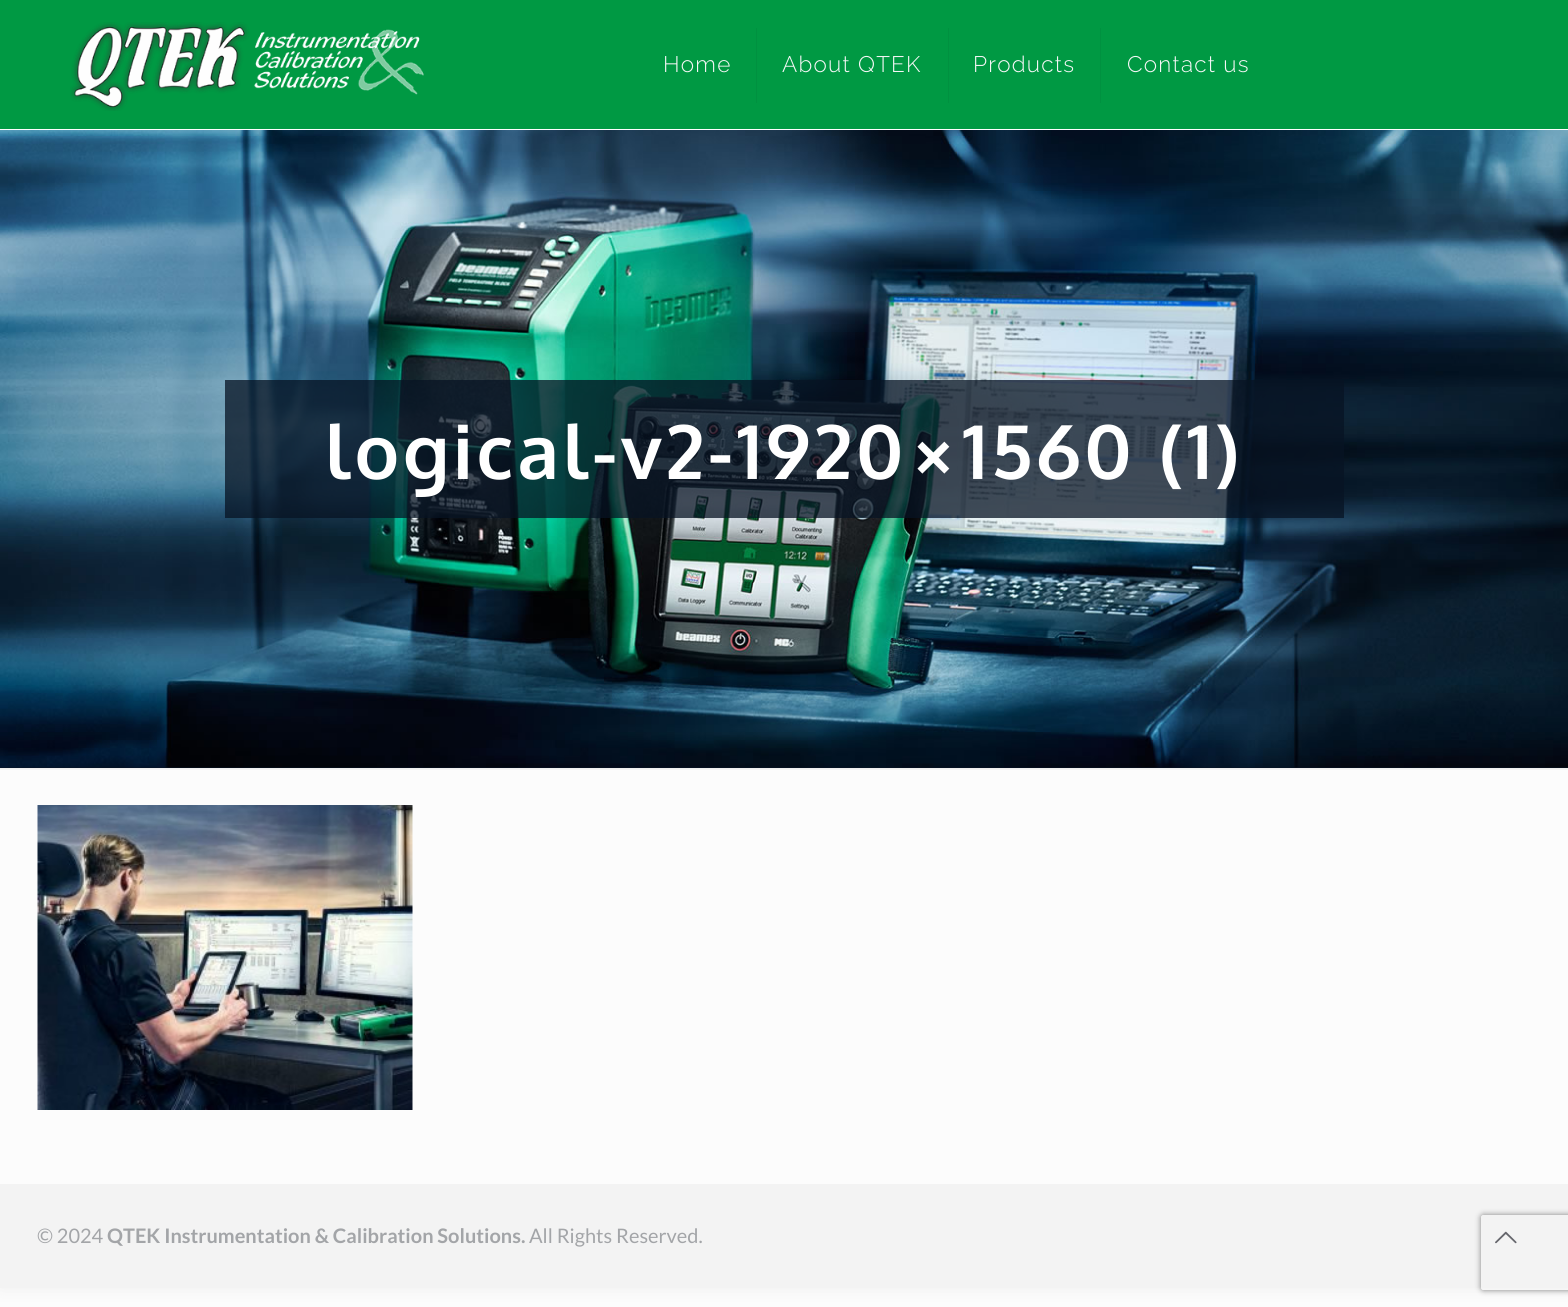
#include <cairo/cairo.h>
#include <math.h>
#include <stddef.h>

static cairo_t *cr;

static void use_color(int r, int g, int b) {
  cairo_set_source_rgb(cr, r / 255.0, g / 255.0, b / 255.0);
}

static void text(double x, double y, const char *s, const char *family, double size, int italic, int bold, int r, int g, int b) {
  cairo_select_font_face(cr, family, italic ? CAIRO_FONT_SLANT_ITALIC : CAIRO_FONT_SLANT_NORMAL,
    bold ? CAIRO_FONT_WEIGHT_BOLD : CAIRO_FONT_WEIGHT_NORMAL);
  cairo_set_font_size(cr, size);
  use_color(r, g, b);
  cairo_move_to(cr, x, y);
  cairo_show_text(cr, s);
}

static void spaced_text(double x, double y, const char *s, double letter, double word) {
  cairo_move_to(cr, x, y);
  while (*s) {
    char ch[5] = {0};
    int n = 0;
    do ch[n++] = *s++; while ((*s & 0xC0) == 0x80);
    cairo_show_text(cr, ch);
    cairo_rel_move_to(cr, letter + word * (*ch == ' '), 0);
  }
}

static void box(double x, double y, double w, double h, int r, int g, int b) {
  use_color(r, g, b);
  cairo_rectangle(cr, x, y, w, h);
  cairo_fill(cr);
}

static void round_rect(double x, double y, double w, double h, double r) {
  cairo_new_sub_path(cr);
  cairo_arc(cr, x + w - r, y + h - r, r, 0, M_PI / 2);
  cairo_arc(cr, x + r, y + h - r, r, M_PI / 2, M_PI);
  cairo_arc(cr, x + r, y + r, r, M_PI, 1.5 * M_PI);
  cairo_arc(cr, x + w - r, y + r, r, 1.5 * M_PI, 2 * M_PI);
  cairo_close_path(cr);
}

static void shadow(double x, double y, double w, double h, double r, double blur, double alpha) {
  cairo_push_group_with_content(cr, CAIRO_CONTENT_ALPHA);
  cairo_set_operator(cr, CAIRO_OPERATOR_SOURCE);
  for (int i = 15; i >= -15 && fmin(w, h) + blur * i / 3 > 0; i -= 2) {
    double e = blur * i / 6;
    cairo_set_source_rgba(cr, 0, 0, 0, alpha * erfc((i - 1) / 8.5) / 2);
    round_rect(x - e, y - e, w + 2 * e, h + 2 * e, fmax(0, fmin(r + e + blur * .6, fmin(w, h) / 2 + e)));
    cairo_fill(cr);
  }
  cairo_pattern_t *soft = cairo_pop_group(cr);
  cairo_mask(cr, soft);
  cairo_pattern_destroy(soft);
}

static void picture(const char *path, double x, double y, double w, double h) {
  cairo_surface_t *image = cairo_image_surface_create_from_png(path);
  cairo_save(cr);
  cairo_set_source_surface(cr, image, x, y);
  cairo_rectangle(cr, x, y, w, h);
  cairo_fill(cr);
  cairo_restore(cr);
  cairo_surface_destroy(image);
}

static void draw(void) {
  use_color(252, 252, 252);
  cairo_paint(cr);
  use_color(0, 0, 0);
  shadow(0, 0, 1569, 1288, 0, 9.5, 0.06);
  box(0, 768, 1568, 416, 252, 252, 252);
  box(0, 0, 1568, 129, 0, 153, 67);
  box(0, 129, 1568, 1, 255, 255, 255);
  picture("img_01.png", 70, 22, 354, 89);
  box(756, 28, 1, 75, 0, 145, 64);
  box(948, 28, 1, 75, 0, 145, 64);
  box(1100, 28, 1, 75, 0, 145, 64);
  box(0, 767, 1568, 1, 9, 21, 38);
  picture("img_02.png", 0, 130, 1568, 638);
  cairo_set_source_rgba(cr, 0.027, 0.075, 0.137, 0.75);
  cairo_rectangle(cr, 225, 380, 1119, 138);
  cairo_fill(cr);
  picture("img_03.png", 0, 768, 1568, 2);
  picture("img_04.png", 37, 805, 376, 305);
  box(0, 1184, 1568, 104, 243, 243, 243);
  picture("img_05.png", 1495, 1231, 22, 13);
  cairo_save(cr);
  cairo_set_fill_rule(cr, CAIRO_FILL_RULE_EVEN_ODD);
  cairo_new_path(cr);
  cairo_move_to(cr, 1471, 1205);
  cairo_line_to(cr, 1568, 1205);
  cairo_line_to(cr, 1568, 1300);
  cairo_line_to(cr, 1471, 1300);
  cairo_close_path(cr);
  cairo_move_to(cr, 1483.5, 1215);
  cairo_line_to(cr, 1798.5, 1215);
  cairo_curve_to(cr, 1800, 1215, 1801, 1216, 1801, 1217.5);
  cairo_line_to(cr, 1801, 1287.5);
  cairo_curve_to(cr, 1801, 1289, 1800, 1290, 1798.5, 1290);
  cairo_line_to(cr, 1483.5, 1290);
  cairo_curve_to(cr, 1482, 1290, 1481, 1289, 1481, 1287.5);
  cairo_line_to(cr, 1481, 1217.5);
  cairo_curve_to(cr, 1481, 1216, 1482, 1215, 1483.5, 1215);
  cairo_close_path(cr);
  cairo_clip(cr);
  use_color(128, 128, 128);
  shadow(1481, 1215, 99, 75, 2.5, 3, 1);
  cairo_restore(cr);
  cairo_select_font_face(cr, "Raleway Light", CAIRO_FONT_SLANT_NORMAL, CAIRO_FONT_WEIGHT_NORMAL);
  cairo_set_font_size(cr, 22.5);
  use_color(247, 247, 247);
  spaced_text(663, 72, "Home", 1.25, 0);
  spaced_text(782, 72, "About QTEK", 1.25, 0);
  spaced_text(973, 72, "Products", 1.25, 0);
  spaced_text(1127, 72, "Contact us", 1.25, 0);
  cairo_select_font_face(cr, "Oxygen", CAIRO_FONT_SLANT_NORMAL, CAIRO_FONT_WEIGHT_BOLD);
  cairo_set_font_size(cr, 75);
  use_color(255, 255, 255);
  spaced_text(325, 479, "logical-v2-1920×1560 (1)", 3.75, 0);
  text(37, 1243, "© 2024", "Lato", 20, 0, 0, 163, 165, 168);
  text(107, 1243, "QTEK Instrumentation & Calibration Solutions.", "Lato", 20, 0, 1, 163, 165, 168);
  text(529, 1243, "All Rights Reserved.", "Lato", 20, 0, 0, 163, 165, 168);
}

int main(void) {
  cairo_surface_t *surface = cairo_image_surface_create(CAIRO_FORMAT_RGB24, 1568, 1307);
  cr = cairo_create(surface);
  cairo_font_options_t *options = cairo_font_options_create();
  cairo_font_options_set_hint_metrics(options, CAIRO_HINT_METRICS_OFF);
  cairo_font_options_set_hint_style(options, CAIRO_HINT_STYLE_NONE);
  cairo_set_font_options(cr, options);
  cairo_set_miter_limit(cr, 4);
  draw();
  cairo_surface_write_to_png(surface, "out.png");
  cairo_font_options_destroy(options);
  cairo_destroy(cr);
  cairo_surface_destroy(surface);
  return 0;
}
